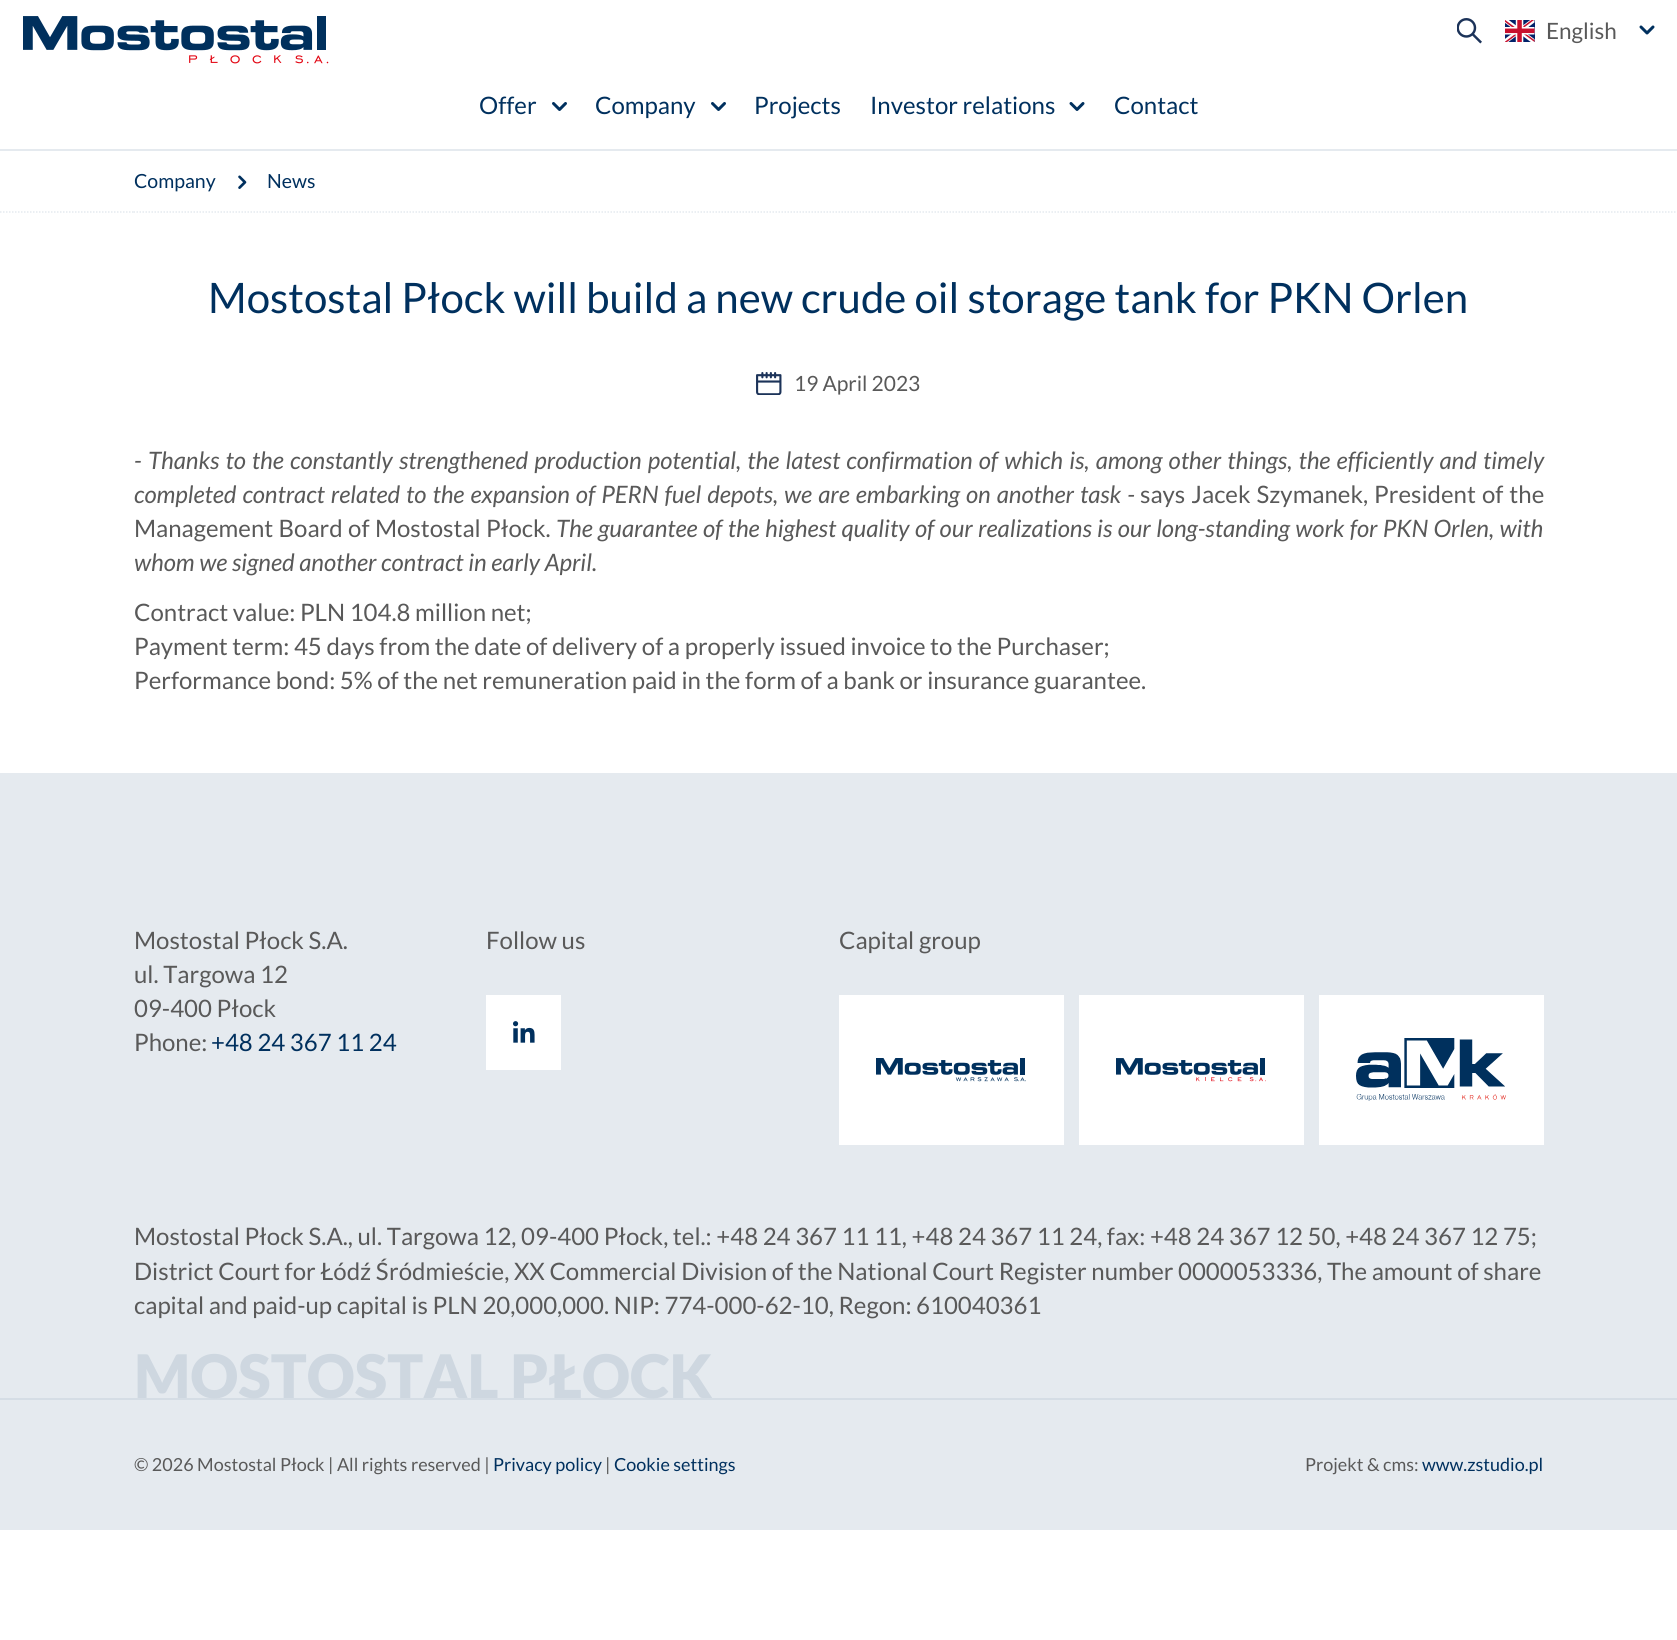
#include <cairo/cairo.h>
#include <math.h>
#include <stddef.h>

static cairo_t *cr;

static void use_color(int r, int g, int b) {
  cairo_set_source_rgb(cr, r / 255.0, g / 255.0, b / 255.0);
}

static void text(double x, double y, const char *s, const char *family, double size, int italic, int bold, int r, int g, int b) {
  cairo_select_font_face(cr, family, italic ? CAIRO_FONT_SLANT_ITALIC : CAIRO_FONT_SLANT_NORMAL,
    bold ? CAIRO_FONT_WEIGHT_BOLD : CAIRO_FONT_WEIGHT_NORMAL);
  cairo_set_font_size(cr, size);
  use_color(r, g, b);
  cairo_move_to(cr, x, y);
  cairo_show_text(cr, s);
}

static void spaced_text(double x, double y, const char *s, double letter, double word) {
  cairo_move_to(cr, x, y);
  while (*s) {
    char ch[5] = {0};
    int n = 0;
    do ch[n++] = *s++; while ((*s & 0xC0) == 0x80);
    cairo_show_text(cr, ch);
    cairo_rel_move_to(cr, letter + word * (*ch == ' '), 0);
  }
}

static void box(double x, double y, double w, double h, int r, int g, int b) {
  use_color(r, g, b);
  cairo_rectangle(cr, x, y, w, h);
  cairo_fill(cr);
}

static void picture(const char *path, double x, double y, double w, double h) {
  cairo_surface_t *image = cairo_image_surface_create_from_png(path);
  cairo_save(cr);
  cairo_set_source_surface(cr, image, x, y);
  cairo_rectangle(cr, x, y, w, h);
  cairo_fill(cr);
  cairo_restore(cr);
  cairo_surface_destroy(image);
}

static void draw(void) {
  use_color(255, 255, 255);
  cairo_paint(cr);
  picture("img_01.png", 23, 16, 306, 48);
  picture("img_02.png", 1457, 18, 25, 26);
  picture("img_03.png", 1505, 20, 30, 22);
  picture("img_04.png", 1639, 25, 16, 10);
  picture("img_05.png", 552, 102, 15, 9);
  picture("img_05.png", 711, 102, 15, 9);
  picture("img_06.png", 1069, 102, 16, 9);
  box(0, 149, 1677, 2, 229, 234, 239);
  cairo_new_path(cr);
  cairo_move_to(cr, 133.5, 212);
  cairo_line_to(cr, 1543.5, 212);
  cairo_set_line_width(cr, 1.5);
  cairo_set_dash(cr, (double[]){1.5, 1.5}, 2, 0);
  cairo_stroke(cr);
  picture("img_07.png", 238, 175, 9, 14);
  cairo_new_path(cr);
  cairo_move_to(cr, -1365, 212);
  cairo_line_to(cr, 135, 212);
  cairo_stroke(cr);
  cairo_new_path(cr);
  cairo_move_to(cr, 1542, 212);
  cairo_line_to(cr, 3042, 212);
  cairo_stroke(cr);
  picture("img_08.png", 756, 372, 26, 23);
  box(0, 773, 1677, 757, 229, 234, 239);
  box(486, 995, 75, 75, 255, 255, 255);
  picture("img_09.png", 513, 1021, 22, 22);
  box(839, 995, 225, 150, 255, 255, 255);
  picture("img_10.png", 876, 1058, 150, 24);
  box(1079, 995, 225, 150, 255, 255, 255);
  picture("img_11.png", 1116, 1058, 150, 24);
  box(1319, 995, 225, 150, 255, 255, 255);
  picture("img_12.png", 1356, 1038, 150, 63);
  box(0, 1398, 1677, 2, 213, 221, 229);
  text(1546, 39, "English", "Lato", 22.5, 0, 0, 89, 89, 89);
  text(479, 114, "Offer", "Lato", 24, 0, 0, 0, 48, 94);
  text(595, 114, "Company", "Lato", 24, 0, 0, 0, 48, 94);
  text(754, 114, "Projects", "Lato", 24, 0, 0, 0, 48, 94);
  text(870, 114, "Investor relations", "Lato", 24, 0, 0, 0, 48, 94);
  text(1114, 114, "Contact", "Lato", 24, 0, 0, 0, 48, 94);
  text(134, 188, "Company", "Lato", 19.5, 0, 0, 0, 48, 94);
  text(267, 188, "News", "Lato", 19.5, 0, 0, 0, 48, 94);
  text(208, 313, "Mostostal Płock will build a new crude oil storage tank for PKN Orlen", "Lato", 42, 0, 0, 0, 48, 94);
  text(794, 391, "19 April 2023", "Lato", 21, 0, 0, 89, 89, 89);
  cairo_select_font_face(cr, "Lato", CAIRO_FONT_SLANT_ITALIC, CAIRO_FONT_WEIGHT_NORMAL);
  cairo_set_font_size(cr, 24);
  spaced_text(134, 469, "- Thanks to the constantly strengthened production potential, the latest confirmation of which is, among other things, the efficiently and timely", 0, 1.55);
  spaced_text(134, 503, "completed contract related to the expansion of PERN fuel depots, we are embarking on another task -", 0, 1.4);
  cairo_select_font_face(cr, "Lato", CAIRO_FONT_SLANT_NORMAL, CAIRO_FONT_WEIGHT_NORMAL);
  spaced_text(1140, 503, "says Jacek Szymanek, President of the", 0, 1.4);
  spaced_text(134, 537, "Management Board of Mostostal Płock.", 0, 0.75);
  cairo_select_font_face(cr, "Lato", CAIRO_FONT_SLANT_ITALIC, CAIRO_FONT_WEIGHT_NORMAL);
  spaced_text(556, 537, "The guarantee of the highest quality of our realizations is our long-standing work for PKN Orlen, with", 0, 0.75);
  text(134, 571, "whom we signed another contract in early April.", "Lato", 24, 1, 0, 89, 89, 89);
  text(134, 621, "Contract value: PLN 104.8 million net;", "Lato", 24, 0, 0, 89, 89, 89);
  text(134, 655, "Payment term: 45 days from the date of delivery of a properly issued invoice to the Purchaser;", "Lato", 24, 0, 0, 89, 89, 89);
  text(134, 689, "Performance bond: 5% of the net remuneration paid in the form of a bank or insurance guarantee.", "Lato", 24, 0, 0, 89, 89, 89);
  text(134, 949, "Mostostal Płock S.A.", "Lato", 24, 0, 0, 89, 89, 89);
  text(134, 983, "ul. Targowa 12", "Lato", 24, 0, 0, 89, 89, 89);
  text(134, 1017, "09-400 Płock", "Lato", 24, 0, 0, 89, 89, 89);
  text(134, 1051, "Phone:", "Lato", 24, 0, 0, 89, 89, 89);
  text(211, 1051, "+48 24 367 11 24", "Lato", 24, 0, 0, 0, 48, 94);
  text(486, 949, "Follow us", "Lato", 24, 0, 0, 89, 89, 89);
  text(839, 949, "Capital group", "Lato", 24, 0, 0, 89, 89, 89);
  text(134, 1245, "Mostostal Płock S.A., ul. Targowa 12, 09-400 Płock, tel.: +48 24 367 11 11, +48 24 367 11 24, fax: +48 24 367 12 50, +48 24 367 12 75;", "Lato", 24, 0, 0, 89, 89, 89);
  text(134, 1280, "District Court for Łódź Śródmieście, XX Commercial Division of the National Court Register number 0000053336, The amount of share", "Lato", 24, 0, 0, 89, 89, 89);
  text(134, 1314, "capital and paid-up capital is PLN 20,000,000. NIP: 774-000-62-10, Regon: 610040361", "Lato", 24, 0, 0, 89, 89, 89);
  text(134, 1398, "MOSTOSTAL PŁOCK", "Lato Black", 60, 0, 0, 206, 215, 224);
  text(134, 1471, "© 2026 Mostostal Płock | All rights reserved |", "Lato", 18, 0, 0, 89, 89, 89);
  text(493, 1471, "Privacy policy", "Lato", 18, 0, 0, 0, 48, 94);
  text(605, 1471, "|", "Lato", 18, 0, 0, 89, 89, 89);
  text(614, 1471, "Cookie settings", "Lato", 18, 0, 0, 0, 48, 94);
  text(1305, 1471, "Projekt & cms:", "Lato", 18, 0, 0, 89, 89, 89);
  text(1422, 1471, "www.zstudio.pl", "Lato", 18, 0, 0, 0, 48, 94);
}

int main(void) {
  cairo_surface_t *surface = cairo_image_surface_create(CAIRO_FORMAT_RGB24, 1677, 1640);
  cr = cairo_create(surface);
  cairo_font_options_t *options = cairo_font_options_create();
  cairo_font_options_set_hint_metrics(options, CAIRO_HINT_METRICS_OFF);
  cairo_font_options_set_hint_style(options, CAIRO_HINT_STYLE_NONE);
  cairo_set_font_options(cr, options);
  cairo_set_miter_limit(cr, 4);
  draw();
  cairo_surface_write_to_png(surface, "out.png");
  cairo_font_options_destroy(options);
  cairo_destroy(cr);
  cairo_surface_destroy(surface);
  return 0;
}
